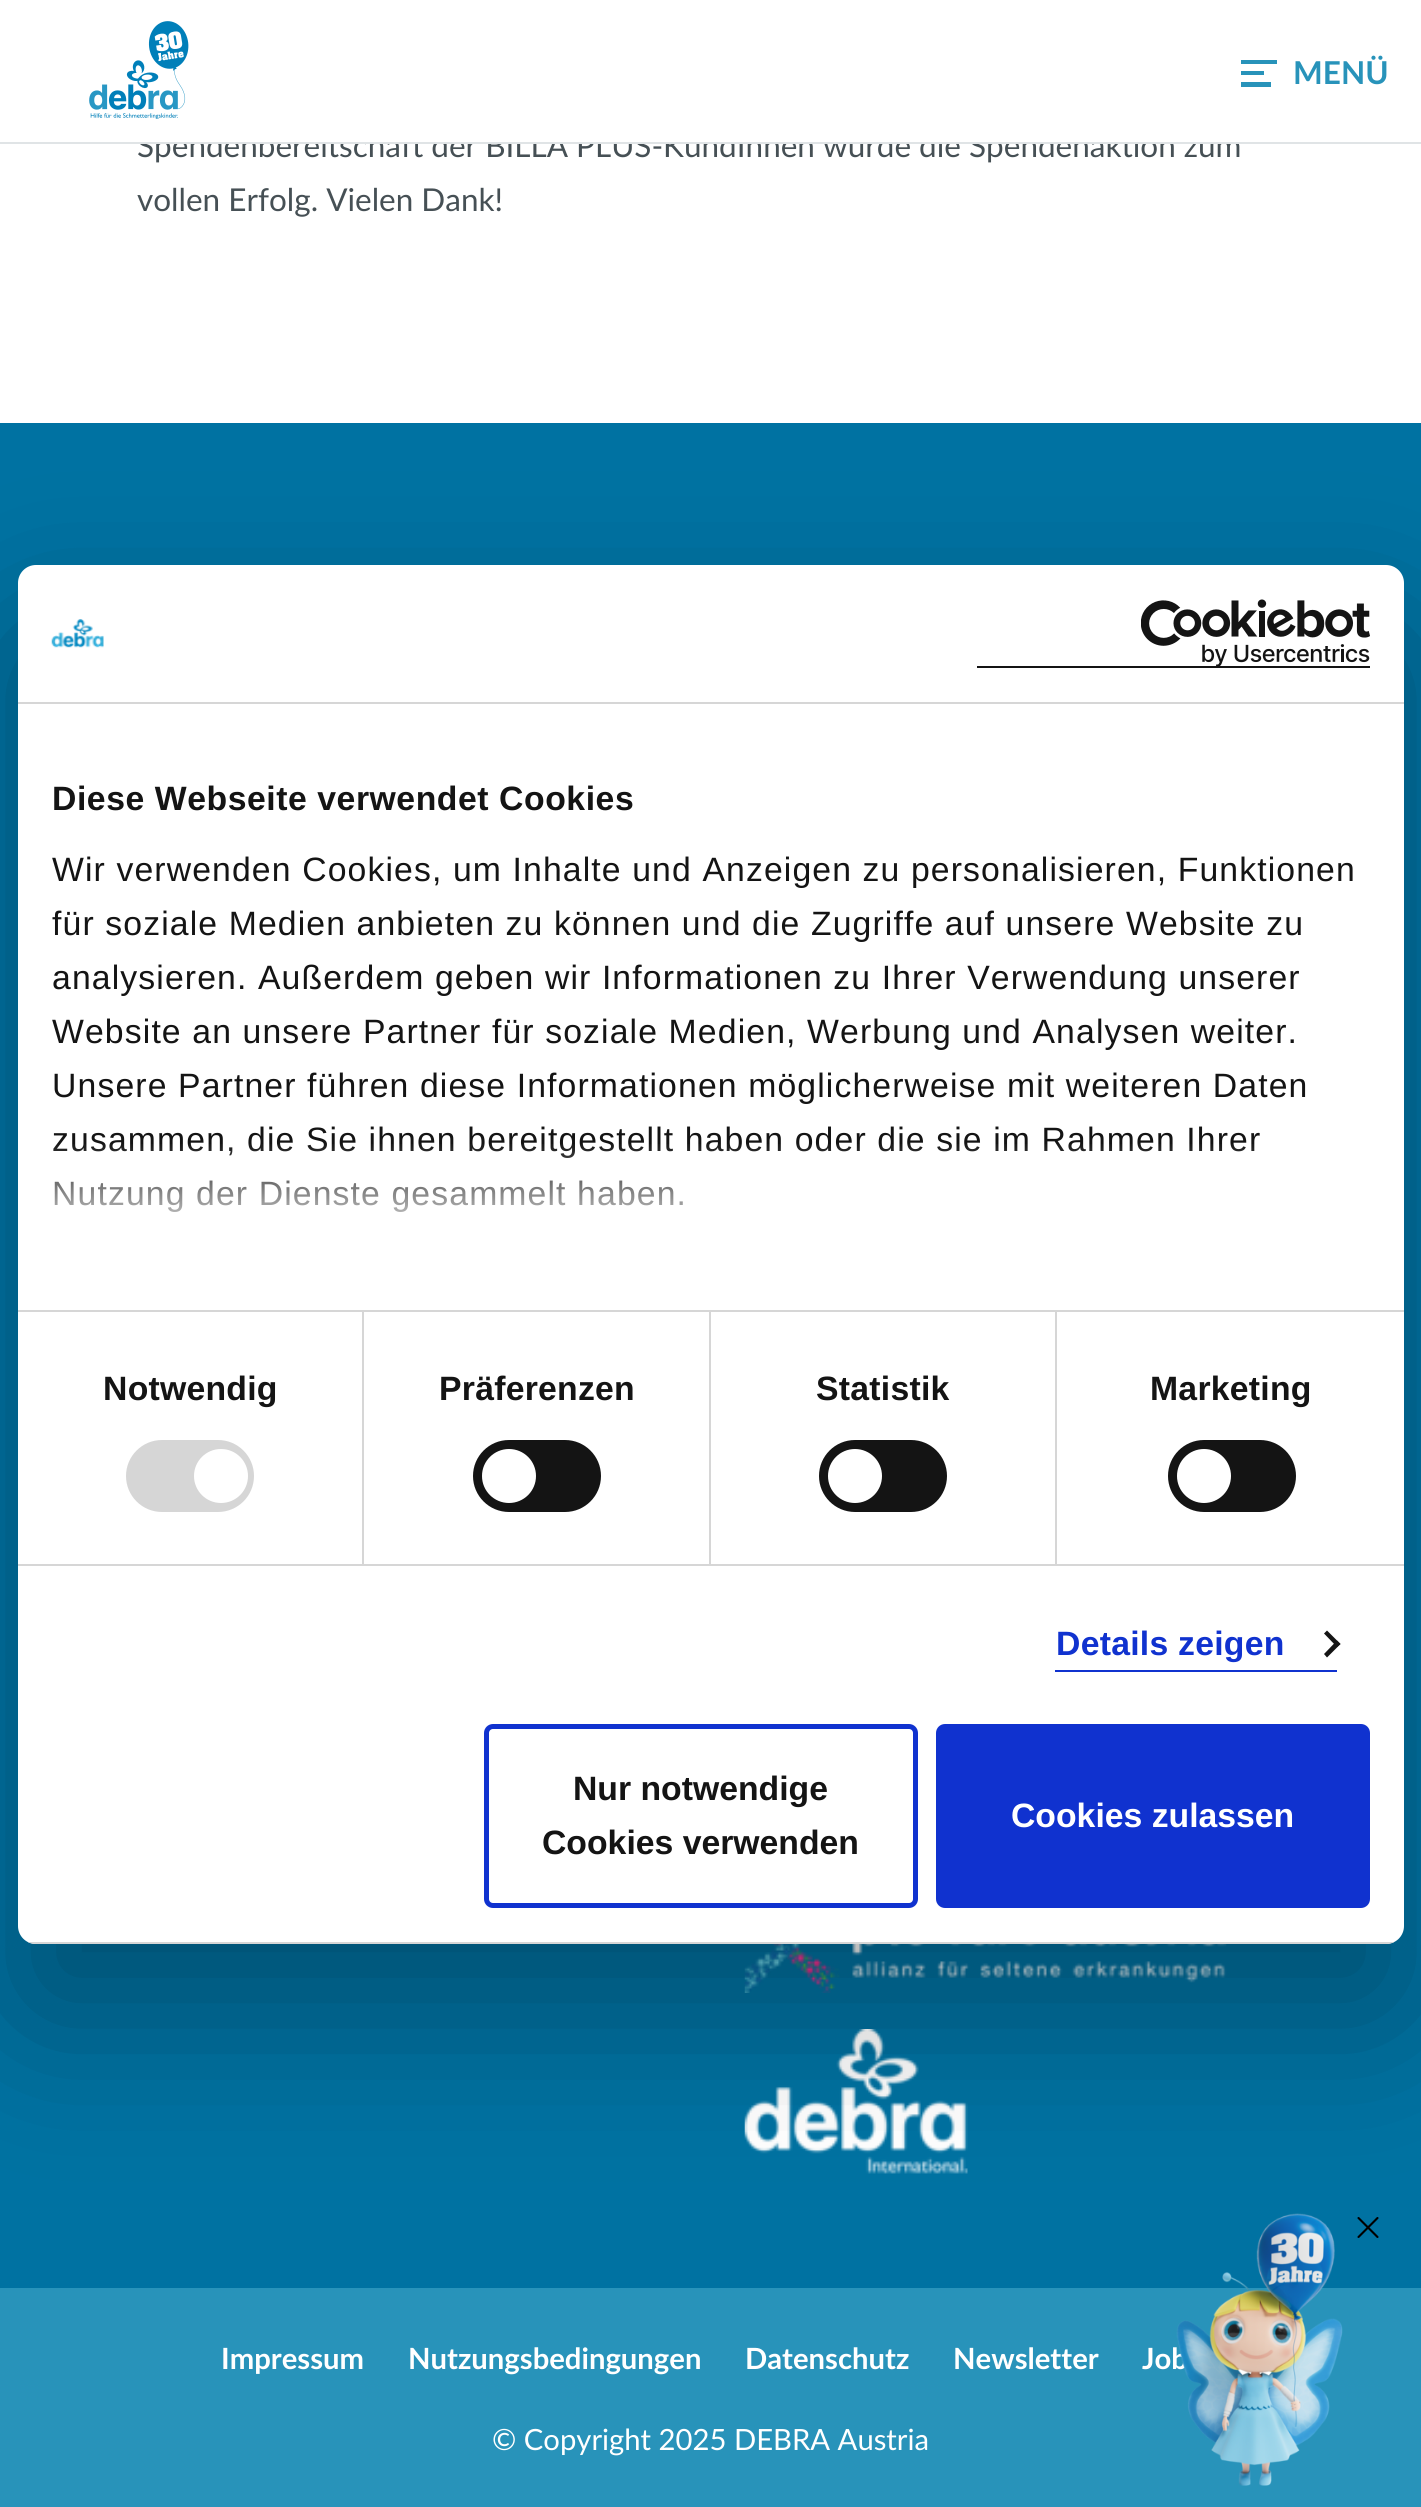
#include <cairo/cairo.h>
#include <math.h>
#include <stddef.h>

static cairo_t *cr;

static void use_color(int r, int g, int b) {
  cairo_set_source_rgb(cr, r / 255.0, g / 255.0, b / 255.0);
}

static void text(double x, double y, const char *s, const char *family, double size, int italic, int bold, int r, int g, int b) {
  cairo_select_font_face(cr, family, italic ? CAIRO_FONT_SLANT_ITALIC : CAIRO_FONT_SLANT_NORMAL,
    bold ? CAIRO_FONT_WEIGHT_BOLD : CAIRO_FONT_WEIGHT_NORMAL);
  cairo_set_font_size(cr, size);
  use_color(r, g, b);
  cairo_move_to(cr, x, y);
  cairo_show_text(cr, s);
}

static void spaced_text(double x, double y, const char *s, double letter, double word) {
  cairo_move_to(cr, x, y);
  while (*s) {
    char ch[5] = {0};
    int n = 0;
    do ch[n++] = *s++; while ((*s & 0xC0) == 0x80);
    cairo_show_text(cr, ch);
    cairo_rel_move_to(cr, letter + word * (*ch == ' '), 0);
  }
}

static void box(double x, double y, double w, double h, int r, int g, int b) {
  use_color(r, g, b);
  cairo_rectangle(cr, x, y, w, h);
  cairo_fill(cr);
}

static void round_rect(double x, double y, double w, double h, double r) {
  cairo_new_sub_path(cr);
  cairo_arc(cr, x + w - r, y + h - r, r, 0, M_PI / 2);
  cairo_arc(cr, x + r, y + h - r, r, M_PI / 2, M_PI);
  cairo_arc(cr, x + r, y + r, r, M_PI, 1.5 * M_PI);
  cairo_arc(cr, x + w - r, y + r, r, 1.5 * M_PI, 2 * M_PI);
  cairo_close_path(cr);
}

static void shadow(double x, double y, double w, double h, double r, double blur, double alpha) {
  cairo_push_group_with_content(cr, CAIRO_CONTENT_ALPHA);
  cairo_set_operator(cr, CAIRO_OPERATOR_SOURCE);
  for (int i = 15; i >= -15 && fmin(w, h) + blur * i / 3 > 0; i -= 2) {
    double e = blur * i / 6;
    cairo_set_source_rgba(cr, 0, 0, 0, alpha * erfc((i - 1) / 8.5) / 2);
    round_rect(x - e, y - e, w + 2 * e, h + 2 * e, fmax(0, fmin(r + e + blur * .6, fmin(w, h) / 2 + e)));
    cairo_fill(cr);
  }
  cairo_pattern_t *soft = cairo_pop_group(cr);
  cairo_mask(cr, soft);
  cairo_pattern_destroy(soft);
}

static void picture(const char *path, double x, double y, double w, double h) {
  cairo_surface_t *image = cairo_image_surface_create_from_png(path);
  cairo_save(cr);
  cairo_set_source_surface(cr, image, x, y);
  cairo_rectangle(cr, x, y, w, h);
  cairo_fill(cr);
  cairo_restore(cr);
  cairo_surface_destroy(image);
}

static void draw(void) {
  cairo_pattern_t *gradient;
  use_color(255, 255, 255);
  cairo_paint(cr);
  picture("img_01.png", 89, 21, 100, 98);
  box(1241, 71, 23, 4, 40, 147, 186);
  box(1241, 82, 30, 5, 40, 147, 186);
  box(1241, 60, 36, 4, 40, 147, 186);
  box(0, 2288, 1421, 219, 40, 147, 186);
  box(0, 423, 1421, 1865, 0, 114, 162);
  picture("img_02.png", 744, 1944, 483, 49);
  picture("img_03.png", 744, 2029, 224, 145);
  picture("img_05.png", 1357, 2217, 22, 21);
  text(1293, 84, "MENÜ", "Lato", 31.5, 0, 1, 40, 147, 186);
  text(137, 157, "Spendenbereitschaft der BILLA PLUS-KundInnen wurde die Spendenaktion zum", "Lato", 31.5, 0, 0, 70, 80, 85);
  box(0, 142, 1421, 2, 224, 228, 230);
  box(139, 133, 1099, 9, 255, 255, 255);
  text(137, 211, "vollen Erfolg. Vielen Dank!", "Lato", 31.5, 0, 0, 70, 80, 85);
  text(221, 2369, "Impressum", "Lato", 29.25, 0, 1, 255, 255, 255);
  text(408, 2369, "Nutzungsbedingungen", "Lato", 29.25, 0, 1, 255, 255, 255);
  text(745, 2369, "Datenschutz", "Lato", 29.25, 0, 1, 255, 255, 255);
  text(953, 2369, "Newsletter", "Lato", 29.25, 0, 1, 255, 255, 255);
  text(1142, 2369, "Job", "Lato", 29.25, 0, 1, 255, 255, 255);
  text(492, 2450, "© Copyright 2025 DEBRA Austria", "Lato", 29.25, 0, 0, 255, 255, 255);
  picture("img_04.png", 1176, 2213, 167, 273);
  use_color(0, 0, 0);
  shadow(18, 637, 1386, 1379, 18, 76.5, 0.3);
  use_color(255, 255, 255);
  round_rect(18, 565, 1386, 1379, 18);
  cairo_fill(cr);
  box(18, 702, 1386, 2, 214, 214, 214);
  picture("img_06.png", 51, 619, 53, 29);
  box(977, 666, 393, 2, 20, 20, 20);
  picture("img_07.png", 1141, 599, 229, 67);
  box(18, 1310, 1386, 2, 214, 214, 214);
  cairo_select_font_face(cr, "Liberation Sans", CAIRO_FONT_SLANT_NORMAL, CAIRO_FONT_WEIGHT_BOLD);
  cairo_set_font_size(cr, 33.75);
  use_color(20, 20, 20);
  spaced_text(52, 810, "Diese Webseite verwendet Cookies", 0.55, 0);
  cairo_select_font_face(cr, "Liberation Sans", CAIRO_FONT_SLANT_NORMAL, CAIRO_FONT_WEIGHT_NORMAL);
  spaced_text(52, 881, "Wir verwenden Cookies, um Inhalte und Anzeigen zu personalisieren, Funktionen", 1.12, 0);
  spaced_text(52, 935, "für soziale Medien anbieten zu können und die Zugriffe auf unsere Website zu", 1.12, 0);
  spaced_text(52, 989, "analysieren. Außerdem geben wir Informationen zu Ihrer Verwendung unserer", 1.12, 0);
  spaced_text(52, 1043, "Website an unsere Partner für soziale Medien, Werbung und Analysen weiter.", 1.12, 0);
  spaced_text(52, 1097, "Unsere Partner führen diese Informationen möglicherweise mit weiteren Daten", 1.12, 0);
  spaced_text(52, 1151, "zusammen, die Sie ihnen bereitgestellt haben oder die sie im Rahmen Ihrer", 1.12, 0);
  spaced_text(52, 1205, "Nutzung der Dienste gesammelt haben.", 1.12, 0);
  gradient = cairo_pattern_create_linear(696, 1310, 696, 1142);
  cairo_pattern_add_color_stop_rgba(gradient, 0, 1, 1, 1, 1);
  cairo_pattern_add_color_stop_rgba(gradient, 0.5, 1, 1, 1, 0.8);
  cairo_pattern_add_color_stop_rgba(gradient, 1, 1, 1, 1, 0);
  cairo_set_source(cr, gradient);
  cairo_pattern_destroy(gradient);
  cairo_rectangle(cr, 53, 1144, 1202, 68);
  cairo_fill(cr);
  box(18, 1564, 1386, 2, 214, 214, 214);
  box(362, 1312, 2, 252, 214, 214, 214);
  cairo_select_font_face(cr, "Liberation Sans", CAIRO_FONT_SLANT_NORMAL, CAIRO_FONT_WEIGHT_BOLD);
  use_color(20, 20, 20);
  spaced_text(103, 1400, "Notwendig", 0.25, 0);
  use_color(214, 214, 214);
  round_rect(126, 1440, 128, 72, 36);
  cairo_fill(cr);
  use_color(255, 255, 255);
  cairo_arc(cr, 221, 1476, 27, 0, 2 * M_PI);
  cairo_fill(cr);
  box(709, 1312, 2, 252, 214, 214, 214);
  use_color(20, 20, 20);
  spaced_text(439, 1400, "Präferenzen", 0.25, 0);
  round_rect(473, 1440, 128, 72, 36);
  cairo_fill(cr);
  use_color(255, 255, 255);
  cairo_arc(cr, 509, 1476, 27, 0, 2 * M_PI);
  cairo_fill(cr);
  box(1055, 1312, 2, 252, 214, 214, 214);
  use_color(20, 20, 20);
  spaced_text(816, 1400, "Statistik", 0.25, 0);
  round_rect(819, 1440, 128, 72, 36);
  cairo_fill(cr);
  use_color(255, 255, 255);
  cairo_arc(cr, 855, 1476, 27, 0, 2 * M_PI);
  cairo_fill(cr);
  use_color(20, 20, 20);
  spaced_text(1150, 1400, "Marketing", 0.25, 0);
  round_rect(1168, 1440, 128, 72, 36);
  cairo_fill(cr);
  use_color(255, 255, 255);
  cairo_arc(cr, 1204, 1476, 27, 0, 2 * M_PI);
  cairo_fill(cr);
  box(1055, 1670, 282, 2, 16, 50, 207);
  spaced_text(1056, 1655, "Details zeigen", 0.25, 0);
  use_color(20, 20, 20);
  cairo_new_path(cr);
  cairo_move_to(cr, 1327, 1630.5);
  cairo_line_to(cr, 1340.5, 1644);
  cairo_line_to(cr, 1337, 1647);
  cairo_line_to(cr, 1324, 1633.5);
  cairo_close_path(cr);
  cairo_fill(cr);
  cairo_new_path(cr);
  cairo_move_to(cr, 1337, 1640.5);
  cairo_line_to(cr, 1340.5, 1644);
  cairo_line_to(cr, 1327, 1657.5);
  cairo_line_to(cr, 1324, 1654);
  cairo_close_path(cr);
  cairo_fill(cr);
  cairo_save(cr);
  round_rect(18, 565, 1386, 1379, 18);
  cairo_clip(cr);
  box(28, 1942, 1366, 2, 214, 214, 214);
  cairo_restore(cr);
  round_rect(486.5, 1726.5, 429, 179, 6.5);
  use_color(16, 50, 207);
  cairo_set_line_width(cr, 5);
  cairo_stroke(cr);
  text(573, 1800, "Nur notwendige", "Liberation Sans", 33.75, 0, 1, 20, 20, 20);
  text(542, 1854, "Cookies verwenden", "Liberation Sans", 33.75, 0, 1, 20, 20, 20);
  use_color(16, 50, 207);
  round_rect(938.5, 1726.5, 429, 179, 6.5);
  cairo_fill_preserve(cr);
  cairo_stroke(cr);
  text(1011, 1827, "Cookies zulassen", "Liberation Sans", 33.75, 0, 1, 255, 255, 255);
}

int main(void) {
  cairo_surface_t *surface = cairo_image_surface_create(CAIRO_FORMAT_RGB24, 1421, 2507);
  cr = cairo_create(surface);
  cairo_font_options_t *options = cairo_font_options_create();
  cairo_font_options_set_hint_metrics(options, CAIRO_HINT_METRICS_OFF);
  cairo_font_options_set_hint_style(options, CAIRO_HINT_STYLE_NONE);
  cairo_set_font_options(cr, options);
  cairo_set_miter_limit(cr, 4);
  draw();
  cairo_surface_write_to_png(surface, "out.png");
  cairo_font_options_destroy(options);
  cairo_destroy(cr);
  cairo_surface_destroy(surface);
  return 0;
}
